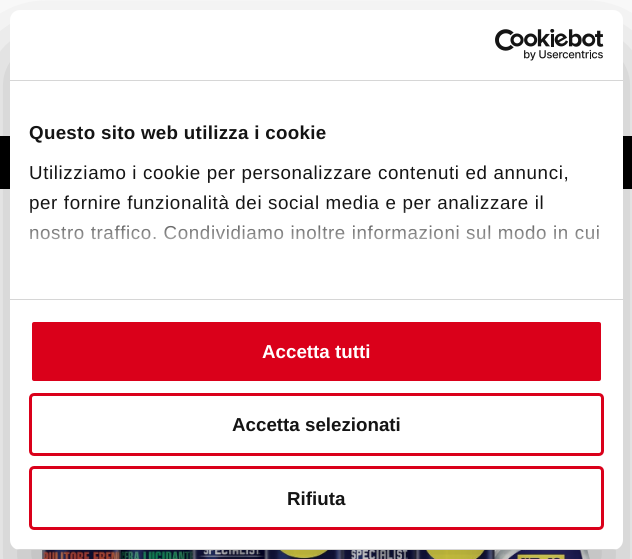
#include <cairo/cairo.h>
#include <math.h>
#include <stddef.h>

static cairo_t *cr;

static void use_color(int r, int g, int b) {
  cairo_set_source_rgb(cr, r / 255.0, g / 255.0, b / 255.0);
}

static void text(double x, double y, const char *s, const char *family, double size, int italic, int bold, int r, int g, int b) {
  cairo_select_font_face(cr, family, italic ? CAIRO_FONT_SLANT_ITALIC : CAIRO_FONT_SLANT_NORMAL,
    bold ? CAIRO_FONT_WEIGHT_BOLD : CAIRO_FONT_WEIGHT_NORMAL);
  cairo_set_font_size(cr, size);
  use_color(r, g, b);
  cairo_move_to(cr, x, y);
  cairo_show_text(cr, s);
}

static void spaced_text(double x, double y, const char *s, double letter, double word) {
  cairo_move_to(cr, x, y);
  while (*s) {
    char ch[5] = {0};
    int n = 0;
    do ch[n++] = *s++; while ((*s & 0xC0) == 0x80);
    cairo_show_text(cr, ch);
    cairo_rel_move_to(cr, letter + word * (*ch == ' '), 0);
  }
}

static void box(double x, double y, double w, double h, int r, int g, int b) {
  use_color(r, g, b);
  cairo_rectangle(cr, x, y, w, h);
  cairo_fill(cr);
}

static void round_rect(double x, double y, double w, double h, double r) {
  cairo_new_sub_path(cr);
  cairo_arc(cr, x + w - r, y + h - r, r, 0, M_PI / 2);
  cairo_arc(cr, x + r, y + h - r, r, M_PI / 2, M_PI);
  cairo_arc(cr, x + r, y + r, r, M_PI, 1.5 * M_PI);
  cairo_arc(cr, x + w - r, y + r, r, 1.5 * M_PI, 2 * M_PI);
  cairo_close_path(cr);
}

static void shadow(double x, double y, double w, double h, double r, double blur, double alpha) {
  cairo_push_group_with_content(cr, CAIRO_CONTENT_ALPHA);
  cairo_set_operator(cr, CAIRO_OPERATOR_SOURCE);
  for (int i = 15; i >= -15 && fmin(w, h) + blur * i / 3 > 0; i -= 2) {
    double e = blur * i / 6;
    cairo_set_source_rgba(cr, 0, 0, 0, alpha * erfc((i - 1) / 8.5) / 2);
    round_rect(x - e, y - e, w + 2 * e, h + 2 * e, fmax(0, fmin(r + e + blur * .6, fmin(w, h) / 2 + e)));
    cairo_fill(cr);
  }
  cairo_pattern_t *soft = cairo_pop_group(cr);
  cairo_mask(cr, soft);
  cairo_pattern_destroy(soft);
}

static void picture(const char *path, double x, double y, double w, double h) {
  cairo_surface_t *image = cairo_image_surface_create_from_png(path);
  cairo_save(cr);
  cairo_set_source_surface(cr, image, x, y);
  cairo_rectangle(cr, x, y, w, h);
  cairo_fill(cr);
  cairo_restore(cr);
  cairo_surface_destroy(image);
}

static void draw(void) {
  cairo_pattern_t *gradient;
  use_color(255, 255, 255);
  cairo_paint(cr);
  box(0, 136, 632, 53, 0, 0, 0);
  picture("img_02.png", 40, 550, 550, 9);
  use_color(0, 0, 0);
  shadow(10, 50, 613, 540, 10, 42.5, 0.3);
  use_color(255, 255, 255);
  round_rect(10, 10, 613, 540, 10);
  cairo_fill(cr);
  box(10, 80, 613, 1, 214, 214, 214);
  picture("img_01.png", 495, 29, 109, 32);
  box(10, 299, 613, 1, 214, 214, 214);
  cairo_save(cr);
  round_rect(10, 10, 613, 540, 10);
  cairo_clip(cr);
  box(10, 549, 613, 1, 214, 214, 214);
  cairo_restore(cr);
  use_color(218, 0, 26);
  round_rect(30.5, 320.5, 572, 62, 3.5);
  cairo_fill_preserve(cr);
  use_color(255, 255, 255);
  cairo_set_line_width(cr, 3);
  cairo_stroke(cr);
  round_rect(30.5, 394.5, 572, 60, 3.5);
  use_color(218, 0, 26);
  cairo_stroke(cr);
  round_rect(30.5, 467.5, 572, 61, 3.5);
  cairo_stroke(cr);
  cairo_select_font_face(cr, "Liberation Sans", CAIRO_FONT_SLANT_NORMAL, CAIRO_FONT_WEIGHT_BOLD);
  cairo_set_font_size(cr, 18.75);
  use_color(20, 20, 20);
  spaced_text(29, 139, "Questo sito web utilizza i cookie", 0.3, 0);
  cairo_select_font_face(cr, "Liberation Sans", CAIRO_FONT_SLANT_NORMAL, CAIRO_FONT_WEIGHT_NORMAL);
  spaced_text(29, 179, "Utilizziamo i cookie per personalizzare contenuti ed annunci,", 0.62, 0);
  spaced_text(29, 209, "per fornire funzionalità dei social media e per analizzare il", 0.62, 0);
  spaced_text(29, 239, "nostro traffico. Condividiamo inoltre informazioni sul modo in cui", 0.62, 0);
  gradient = cairo_pattern_create_linear(308, 299, 308, 205);
  cairo_pattern_add_color_stop_rgba(gradient, 0, 1, 1, 1, 1);
  cairo_pattern_add_color_stop_rgba(gradient, 0.5, 1, 1, 1, 0.8);
  cairo_pattern_add_color_stop_rgba(gradient, 1, 1, 1, 1, 0);
  cairo_set_source(cr, gradient);
  cairo_pattern_destroy(gradient);
  cairo_rectangle(cr, 30, 206, 569, 34);
  cairo_fill(cr);
  text(262, 358, "Accetta tutti", "Liberation Sans", 18.75, 0, 1, 255, 255, 255);
  text(232, 431, "Accetta selezionati", "Liberation Sans", 18.75, 0, 1, 20, 20, 20);
  text(287, 505, "Rifiuta", "Liberation Sans", 18.75, 0, 1, 20, 20, 20);
}

int main(void) {
  cairo_surface_t *surface = cairo_image_surface_create(CAIRO_FORMAT_RGB24, 632, 559);
  cr = cairo_create(surface);
  cairo_font_options_t *options = cairo_font_options_create();
  cairo_font_options_set_hint_metrics(options, CAIRO_HINT_METRICS_OFF);
  cairo_font_options_set_hint_style(options, CAIRO_HINT_STYLE_NONE);
  cairo_set_font_options(cr, options);
  cairo_set_miter_limit(cr, 4);
  draw();
  cairo_surface_write_to_png(surface, "out.png");
  cairo_font_options_destroy(options);
  cairo_destroy(cr);
  cairo_surface_destroy(surface);
  return 0;
}
